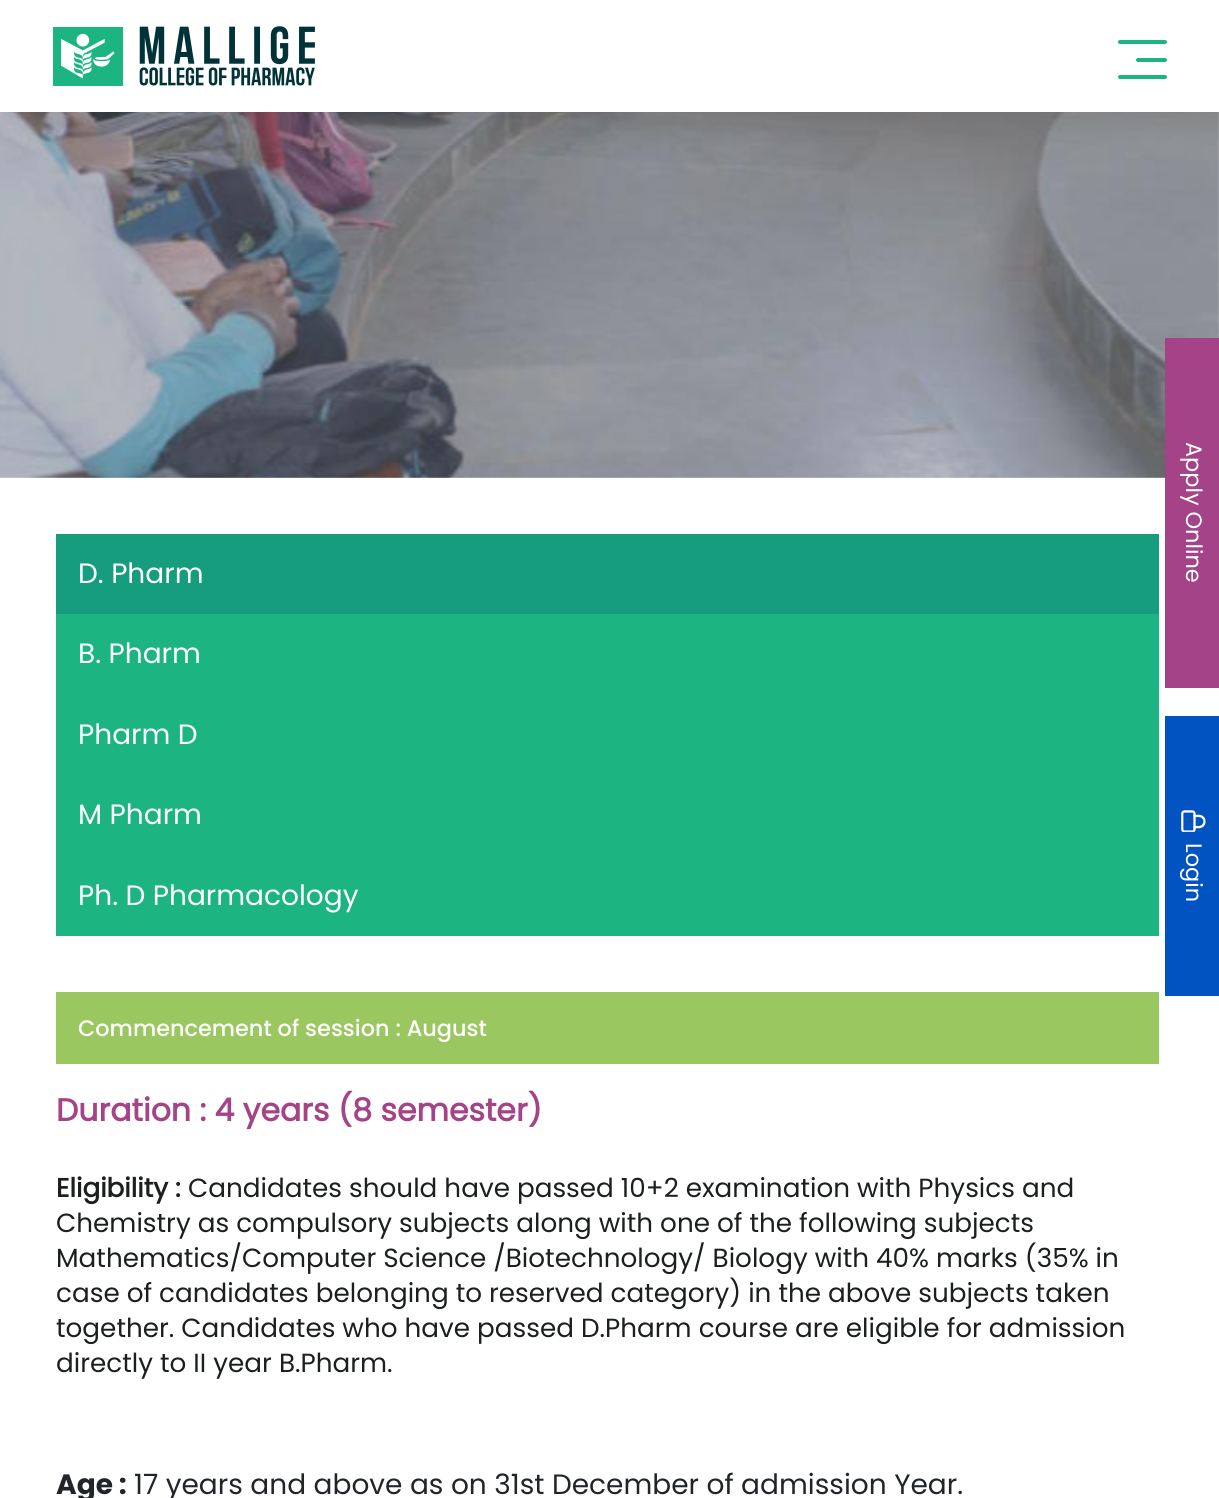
#include <cairo/cairo.h>
#include <math.h>
#include <stddef.h>

static cairo_t *cr;

static void use_color(int r, int g, int b) {
  cairo_set_source_rgb(cr, r / 255.0, g / 255.0, b / 255.0);
}

static void text(double x, double y, const char *s, const char *family, double size, int italic, int bold, int r, int g, int b) {
  cairo_select_font_face(cr, family, italic ? CAIRO_FONT_SLANT_ITALIC : CAIRO_FONT_SLANT_NORMAL,
    bold ? CAIRO_FONT_WEIGHT_BOLD : CAIRO_FONT_WEIGHT_NORMAL);
  cairo_set_font_size(cr, size);
  use_color(r, g, b);
  cairo_move_to(cr, x, y);
  cairo_show_text(cr, s);
}

static void box(double x, double y, double w, double h, int r, int g, int b) {
  use_color(r, g, b);
  cairo_rectangle(cr, x, y, w, h);
  cairo_fill(cr);
}

static void round_rect(double x, double y, double w, double h, double r) {
  cairo_new_sub_path(cr);
  cairo_arc(cr, x + w - r, y + h - r, r, 0, M_PI / 2);
  cairo_arc(cr, x + r, y + h - r, r, M_PI / 2, M_PI);
  cairo_arc(cr, x + r, y + r, r, M_PI, 1.5 * M_PI);
  cairo_arc(cr, x + w - r, y + r, r, 1.5 * M_PI, 2 * M_PI);
  cairo_close_path(cr);
}

static void shadow(double x, double y, double w, double h, double r, double blur, double alpha) {
  cairo_push_group_with_content(cr, CAIRO_CONTENT_ALPHA);
  cairo_set_operator(cr, CAIRO_OPERATOR_SOURCE);
  for (int i = 15; i >= -15 && fmin(w, h) + blur * i / 3 > 0; i -= 2) {
    double e = blur * i / 6;
    cairo_set_source_rgba(cr, 0, 0, 0, alpha * erfc((i - 1) / 8.5) / 2);
    round_rect(x - e, y - e, w + 2 * e, h + 2 * e, fmax(0, fmin(r + e + blur * .6, fmin(w, h) / 2 + e)));
    cairo_fill(cr);
  }
  cairo_pattern_t *soft = cairo_pop_group(cr);
  cairo_mask(cr, soft);
  cairo_pattern_destroy(soft);
}

static void picture(const char *path, double x, double y, double w, double h) {
  cairo_surface_t *image = cairo_image_surface_create_from_png(path);
  cairo_save(cr);
  cairo_set_source_surface(cr, image, x, y);
  cairo_rectangle(cr, x, y, w, h);
  cairo_fill(cr);
  cairo_restore(cr);
  cairo_surface_destroy(image);
}

static void draw(void) {
  use_color(255, 255, 255);
  cairo_paint(cr);
  picture("img_01.png", 0, 112, 1219, 366);
  box(56, 614, 1103, 322, 28, 181, 130);
  box(56, 534, 1103, 80, 21, 157, 125);
  box(56, 992, 1103, 72, 154, 199, 96);
  use_color(0, 0, 0);
  shadow(4, 4, 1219, 112, 0, 17.5, 0.06);
  box(0, 0, 1219, 112, 255, 255, 255);
  use_color(28, 181, 130);
  round_rect(1136, 58, 31, 4, 2);
  cairo_fill(cr);
  round_rect(1118, 40, 49, 4, 2);
  cairo_fill(cr);
  round_rect(1118, 75, 49, 4, 2);
  cairo_fill(cr);
  picture("img_02.png", 53, 26, 262, 60);
  box(1165, 338, 54, 350, 164, 67, 136);
  box(1165, 716, 54, 280, 0, 83, 192);
  picture("img_03.png", 1181, 810, 25, 22);
  text(78, 583, "D. Pharm", "Poppins", 28, 0, 0, 255, 255, 255);
  text(78, 663, "B. Pharm", "Poppins", 28, 0, 0, 255, 255, 255);
  text(78, 744, "Pharm D", "Poppins", 28, 0, 0, 255, 255, 255);
  text(78, 824, "M Pharm", "Poppins", 28, 0, 0, 255, 255, 255);
  text(78, 905, "Ph. D Pharmacology", "Poppins", 28, 0, 0, 255, 255, 255);
  text(78, 1036, "Commencement of session : August", "Poppins Medium", 22.4, 0, 0, 255, 255, 255);
  text(56, 1121, "Duration : 4 years (8 semester)", "Poppins", 31.5, 0, 1, 164, 67, 136);
  text(56, 1197, "Eligibility :", "Poppins", 26.25, 0, 1, 27, 31, 30);
  text(188, 1197, "Candidates should have passed 10+2 examination with Physics and", "Poppins", 26.25, 0, 0, 27, 31, 30);
  text(56, 1232, "Chemistry as compulsory subjects along with one of the following subjects", "Poppins", 26.25, 0, 0, 27, 31, 30);
  text(56, 1267, "Mathematics/Computer Science /Biotechnology/ Biology with 40% marks (35% in", "Poppins", 26.25, 0, 0, 27, 31, 30);
  text(56, 1302, "case of candidates belonging to reserved category) in the above subjects taken", "Poppins", 26.25, 0, 0, 27, 31, 30);
  text(56, 1337, "together. Candidates who have passed D.Pharm course are eligible for admission", "Poppins", 26.25, 0, 0, 27, 31, 30);
  text(56, 1372, "directly to II year B.Pharm.", "Poppins", 26.25, 0, 0, 27, 31, 30);
  text(56, 1494, "Age :", "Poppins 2", 28, 0, 1, 33, 37, 41);
  text(134, 1494, "17 years and above as on 31st December of admission Year.", "Poppins 2", 28, 0, 0, 33, 37, 41);
  cairo_save(cr);
  cairo_translate(cr, 1186, 442);
  cairo_rotate(cr, 90 * M_PI / 180);
  text(0, 0, "Apply Online", "Poppins", 22.4, 0, 0, 255, 255, 255);
  cairo_restore(cr);
  cairo_save(cr);
  cairo_translate(cr, 1186, 843);
  cairo_rotate(cr, 90 * M_PI / 180);
  text(0, 0, "Login", "Poppins", 22.4, 0, 0, 255, 255, 255);
  cairo_restore(cr);
}

int main(void) {
  cairo_surface_t *surface = cairo_image_surface_create(CAIRO_FORMAT_RGB24, 1219, 1498);
  cr = cairo_create(surface);
  cairo_font_options_t *options = cairo_font_options_create();
  cairo_font_options_set_hint_metrics(options, CAIRO_HINT_METRICS_OFF);
  cairo_font_options_set_hint_style(options, CAIRO_HINT_STYLE_NONE);
  cairo_set_font_options(cr, options);
  cairo_set_miter_limit(cr, 4);
  draw();
  cairo_surface_write_to_png(surface, "out.png");
  cairo_font_options_destroy(options);
  cairo_destroy(cr);
  cairo_surface_destroy(surface);
  return 0;
}
